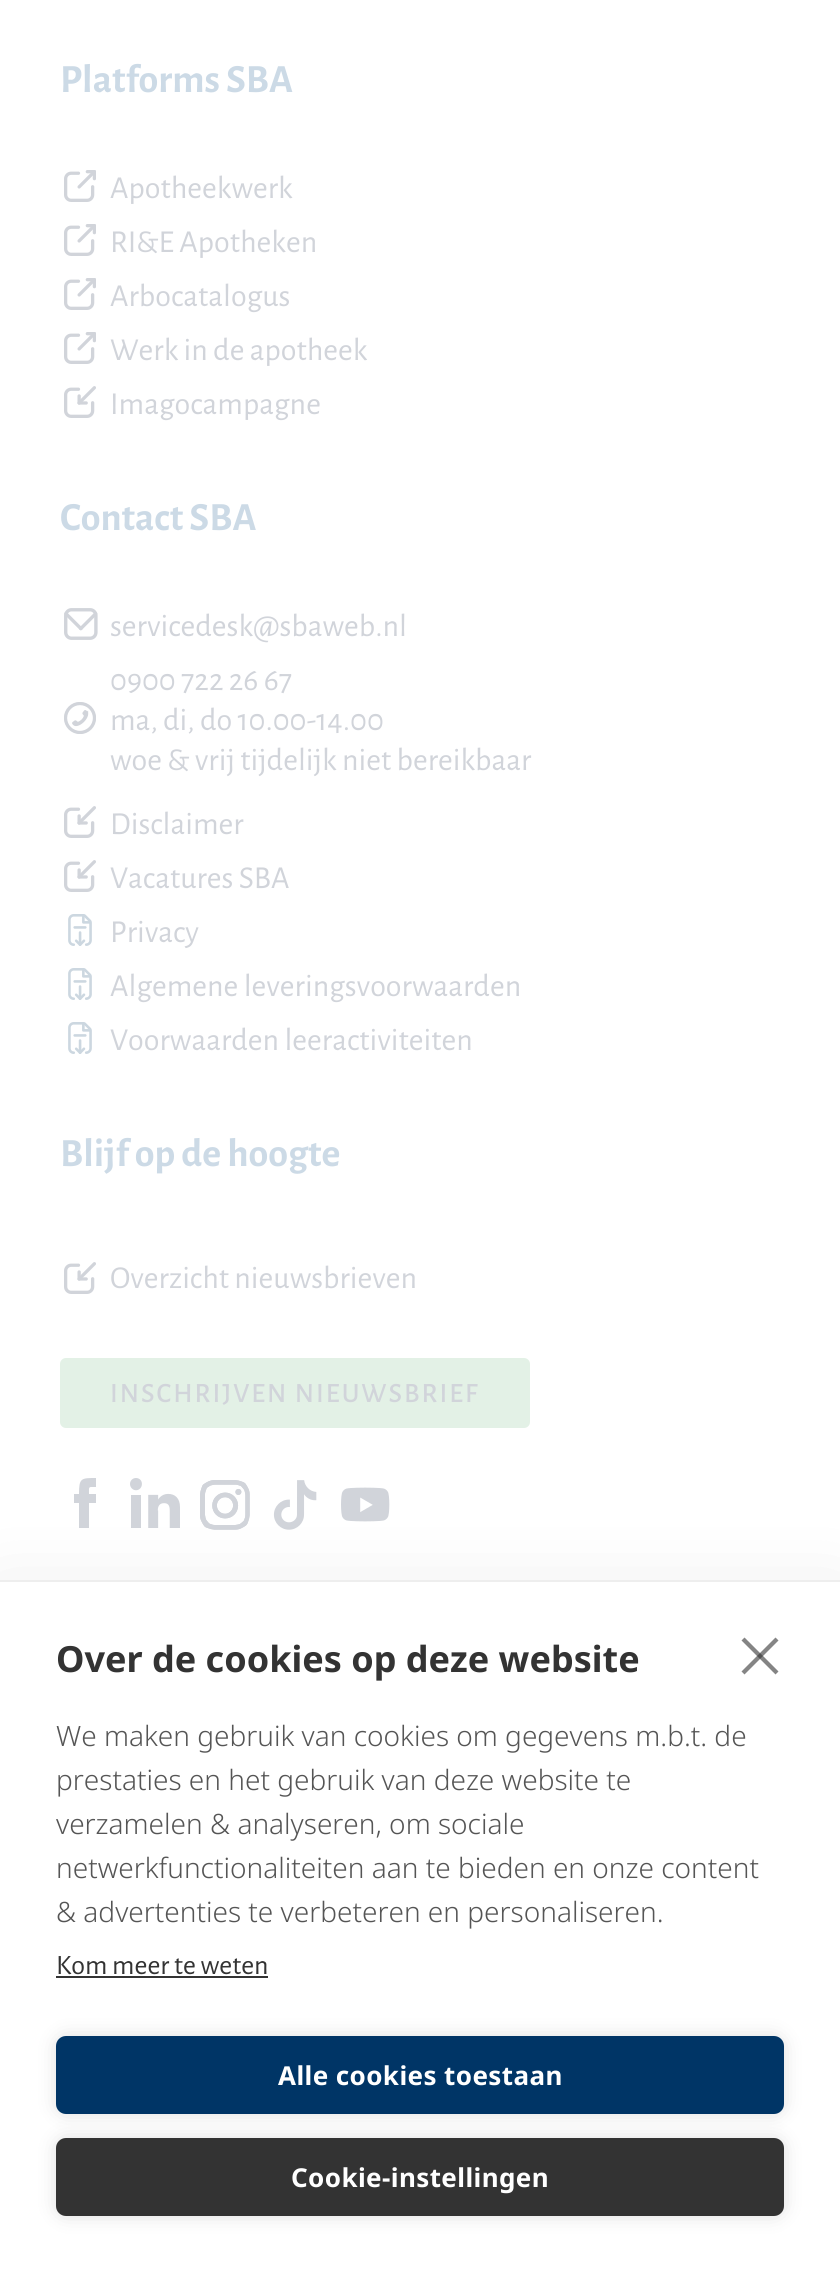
#include <cairo/cairo.h>
#include <math.h>
#include <stddef.h>

static cairo_t *cr;

static void use_color(int r, int g, int b) {
  cairo_set_source_rgb(cr, r / 255.0, g / 255.0, b / 255.0);
}

static void text(double x, double y, const char *s, const char *family, double size, int italic, int bold, int r, int g, int b) {
  cairo_select_font_face(cr, family, italic ? CAIRO_FONT_SLANT_ITALIC : CAIRO_FONT_SLANT_NORMAL,
    bold ? CAIRO_FONT_WEIGHT_BOLD : CAIRO_FONT_WEIGHT_NORMAL);
  cairo_set_font_size(cr, size);
  use_color(r, g, b);
  cairo_move_to(cr, x, y);
  cairo_show_text(cr, s);
}

static void spaced_text(double x, double y, const char *s, double letter, double word) {
  cairo_move_to(cr, x, y);
  while (*s) {
    char ch[5] = {0};
    int n = 0;
    do ch[n++] = *s++; while ((*s & 0xC0) == 0x80);
    cairo_show_text(cr, ch);
    cairo_rel_move_to(cr, letter + word * (*ch == ' '), 0);
  }
}

static void box(double x, double y, double w, double h, int r, int g, int b) {
  use_color(r, g, b);
  cairo_rectangle(cr, x, y, w, h);
  cairo_fill(cr);
}

static void round_rect(double x, double y, double w, double h, double r) {
  cairo_new_sub_path(cr);
  cairo_arc(cr, x + w - r, y + h - r, r, 0, M_PI / 2);
  cairo_arc(cr, x + r, y + h - r, r, M_PI / 2, M_PI);
  cairo_arc(cr, x + r, y + r, r, M_PI, 1.5 * M_PI);
  cairo_arc(cr, x + w - r, y + r, r, 1.5 * M_PI, 2 * M_PI);
  cairo_close_path(cr);
}

static void shadow(double x, double y, double w, double h, double r, double blur, double alpha) {
  cairo_push_group_with_content(cr, CAIRO_CONTENT_ALPHA);
  cairo_set_operator(cr, CAIRO_OPERATOR_SOURCE);
  for (int i = 15; i >= -15 && fmin(w, h) + blur * i / 3 > 0; i -= 2) {
    double e = blur * i / 6;
    cairo_set_source_rgba(cr, 0, 0, 0, alpha * erfc((i - 1) / 8.5) / 2);
    round_rect(x - e, y - e, w + 2 * e, h + 2 * e, fmax(0, fmin(r + e + blur * .6, fmin(w, h) / 2 + e)));
    cairo_fill(cr);
  }
  cairo_pattern_t *soft = cairo_pop_group(cr);
  cairo_mask(cr, soft);
  cairo_pattern_destroy(soft);
}

static void picture(const char *path, double x, double y, double w, double h) {
  cairo_surface_t *image = cairo_image_surface_create_from_png(path);
  cairo_save(cr);
  cairo_set_source_surface(cr, image, x, y);
  cairo_rectangle(cr, x, y, w, h);
  cairo_fill(cr);
  cairo_restore(cr);
  cairo_surface_destroy(image);
}

static void draw(void) {
  use_color(255, 255, 255);
  cairo_paint(cr);
  picture("img_01.png", 64, 170, 32, 32);
  picture("img_01.png", 64, 224, 32, 32);
  picture("img_01.png", 64, 278, 32, 32);
  picture("img_01.png", 64, 332, 32, 32);
  picture("img_02.png", 64, 386, 32, 32);
  picture("img_03.png", 64, 608, 34, 32);
  picture("img_04.png", 64, 702, 32, 32);
  picture("img_02.png", 64, 806, 32, 32);
  picture("img_02.png", 64, 860, 32, 32);
  picture("img_05.png", 68, 914, 24, 32);
  picture("img_05.png", 68, 968, 24, 32);
  picture("img_05.png", 68, 1022, 24, 32);
  picture("img_02.png", 64, 1262, 32, 32);
  use_color(227, 241, 230);
  round_rect(60, 1358, 470, 70, 6);
  cairo_fill(cr);
  use_color(209, 212, 218);
  cairo_new_path(cr);
  cairo_move_to(cr, 79, 1528);
  cairo_line_to(cr, 89, 1528);
  cairo_line_to(cr, 89, 1503);
  cairo_line_to(cr, 96, 1503);
  cairo_line_to(cr, 96, 1494);
  cairo_line_to(cr, 89, 1494);
  cairo_curve_to(cr, 89, 1486, 88, 1487, 96, 1487);
  cairo_line_to(cr, 96, 1478);
  cairo_curve_to(cr, 81, 1478, 79, 1478, 79, 1494);
  cairo_line_to(cr, 74, 1494);
  cairo_line_to(cr, 74, 1503);
  cairo_line_to(cr, 79, 1503);
  cairo_close_path(cr);
  cairo_fill(cr);
  picture("img_06.png", 130, 1478, 50, 50);
  picture("img_07.png", 200, 1480, 50, 50);
  picture("img_08.png", 273, 1480, 44, 50);
  picture("img_09.png", 341, 1487, 49, 35);
  use_color(0, 0, 0);
  shadow(0, 1600, 840, 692, 0, 40, 0.1);
  box(0, 1582, 840, 689, 255, 255, 255);
  box(0, 1580, 840, 2, 238, 238, 238);
  box(56, 1976, 212, 2, 51, 51, 51);
  use_color(133, 133, 133);
  cairo_new_path(cr);
  cairo_move_to(cr, 741.5, 1671.5);
  cairo_line_to(cr, 775.5, 1637.5);
  cairo_line_to(cr, 778.5, 1640.5);
  cairo_line_to(cr, 744.5, 1674.5);
  cairo_close_path(cr);
  cairo_fill(cr);
  cairo_set_source_rgba(cr, 0.2, 0.2, 0.2, 0.6);
  cairo_new_path(cr);
  cairo_move_to(cr, 744.5, 1637.5);
  cairo_line_to(cr, 778.5, 1671.5);
  cairo_line_to(cr, 775.5, 1674.5);
  cairo_line_to(cr, 741.5, 1640.5);
  cairo_close_path(cr);
  cairo_fill(cr);
  use_color(0, 0, 0);
  shadow(56, 2036, 728, 78, 10, 10, 0.12);
  use_color(0, 53, 102);
  round_rect(56, 2036, 728, 78, 10);
  cairo_fill(cr);
  use_color(0, 0, 0);
  shadow(56, 2138, 728, 78, 10, 10, 0.12);
  use_color(51, 51, 51);
  round_rect(56, 2138, 728, 78, 10);
  cairo_fill(cr);
  text(60, 92, "Platforms SBA", "Alegreya Sans", 40, 0, 1, 204, 218, 230);
  text(110, 198, "Apotheekwerk", "Alegreya Sans", 32, 0, 0, 209, 212, 218);
  text(110, 252, "RI&E Apotheken", "Alegreya Sans", 32, 0, 0, 209, 212, 218);
  text(110, 306, "Arbocatalogus", "Alegreya Sans", 32, 0, 0, 209, 212, 218);
  text(110, 360, "Werk in de apotheek", "Alegreya Sans", 32, 0, 0, 209, 212, 218);
  text(110, 414, "Imagocampagne", "Alegreya Sans", 32, 0, 0, 209, 212, 218);
  text(60, 530, "Contact SBA", "Alegreya Sans", 40, 0, 1, 204, 218, 230);
  text(110, 636, "servicedesk@sbaweb.nl", "Alegreya Sans", 32, 0, 0, 209, 212, 218);
  text(110, 690, "0900 722 26 67", "Alegreya Sans", 32, 0, 0, 209, 212, 218);
  text(110, 730, "ma, di, do 10.00-14.00", "Alegreya Sans", 32, 0, 0, 209, 212, 218);
  text(110, 770, "woe & vrij tijdelijk niet bereikbaar", "Alegreya Sans", 32, 0, 0, 209, 212, 218);
  text(110, 834, "Disclaimer", "Alegreya Sans", 32, 0, 0, 209, 212, 218);
  text(110, 888, "Vacatures SBA", "Alegreya Sans", 32, 0, 0, 209, 212, 218);
  text(110, 942, "Privacy", "Alegreya Sans", 32, 0, 0, 209, 212, 218);
  text(110, 996, "Algemene leveringsvoorwaarden", "Alegreya Sans", 32, 0, 0, 209, 212, 218);
  text(110, 1050, "Voorwaarden leeractiviteiten", "Alegreya Sans", 32, 0, 0, 209, 212, 218);
  text(60, 1166, "Blijf op de hoogte", "Alegreya Sans", 40, 0, 1, 204, 218, 230);
  text(110, 1288, "Overzicht nieuwsbrieven", "Alegreya Sans", 32, 0, 0, 209, 212, 218);
  cairo_select_font_face(cr, "Alegreya Sans Medium", CAIRO_FONT_SLANT_NORMAL, CAIRO_FONT_WEIGHT_NORMAL);
  cairo_set_font_size(cr, 28);
  spaced_text(110, 1402, "INSCHRIJVEN NIEUWSBRIEF", 2, 0);
  text(56, 1672, "Over de cookies op deze website", "Noto Sans", 36, 0, 1, 51, 51, 51);
  text(56, 1746, "We maken gebruik van cookies om gegevens m.b.t. de", "Noto Sans Light", 28, 0, 0, 85, 85, 85);
  text(56, 1790, "prestaties en het gebruik van deze website te", "Noto Sans Light", 28, 0, 0, 85, 85, 85);
  text(56, 1834, "verzamelen & analyseren, om sociale", "Noto Sans Light", 28, 0, 0, 85, 85, 85);
  text(56, 1878, "netwerkfunctionaliteiten aan te bieden en onze content", "Noto Sans Light", 28, 0, 0, 85, 85, 85);
  text(56, 1922, "& advertenties te verbeteren en personaliseren.", "Noto Sans Light", 28, 0, 0, 85, 85, 85);
  text(56, 1974, "Kom meer te weten", "Alegreya Sans", 28, 0, 0, 51, 51, 51);
  cairo_select_font_face(cr, "Noto Sans", CAIRO_FONT_SLANT_NORMAL, CAIRO_FONT_WEIGHT_BOLD);
  cairo_set_font_size(cr, 26);
  use_color(255, 255, 255);
  spaced_text(278, 2085, "Alle cookies toestaan", 0.4, 0);
  spaced_text(291, 2187, "Cookie-instellingen", 0.4, 0);
}

int main(void) {
  cairo_surface_t *surface = cairo_image_surface_create(CAIRO_FORMAT_RGB24, 840, 2271);
  cr = cairo_create(surface);
  cairo_font_options_t *options = cairo_font_options_create();
  cairo_font_options_set_hint_metrics(options, CAIRO_HINT_METRICS_OFF);
  cairo_font_options_set_hint_style(options, CAIRO_HINT_STYLE_NONE);
  cairo_set_font_options(cr, options);
  cairo_set_miter_limit(cr, 4);
  draw();
  cairo_surface_write_to_png(surface, "out.png");
  cairo_font_options_destroy(options);
  cairo_destroy(cr);
  cairo_surface_destroy(surface);
  return 0;
}
